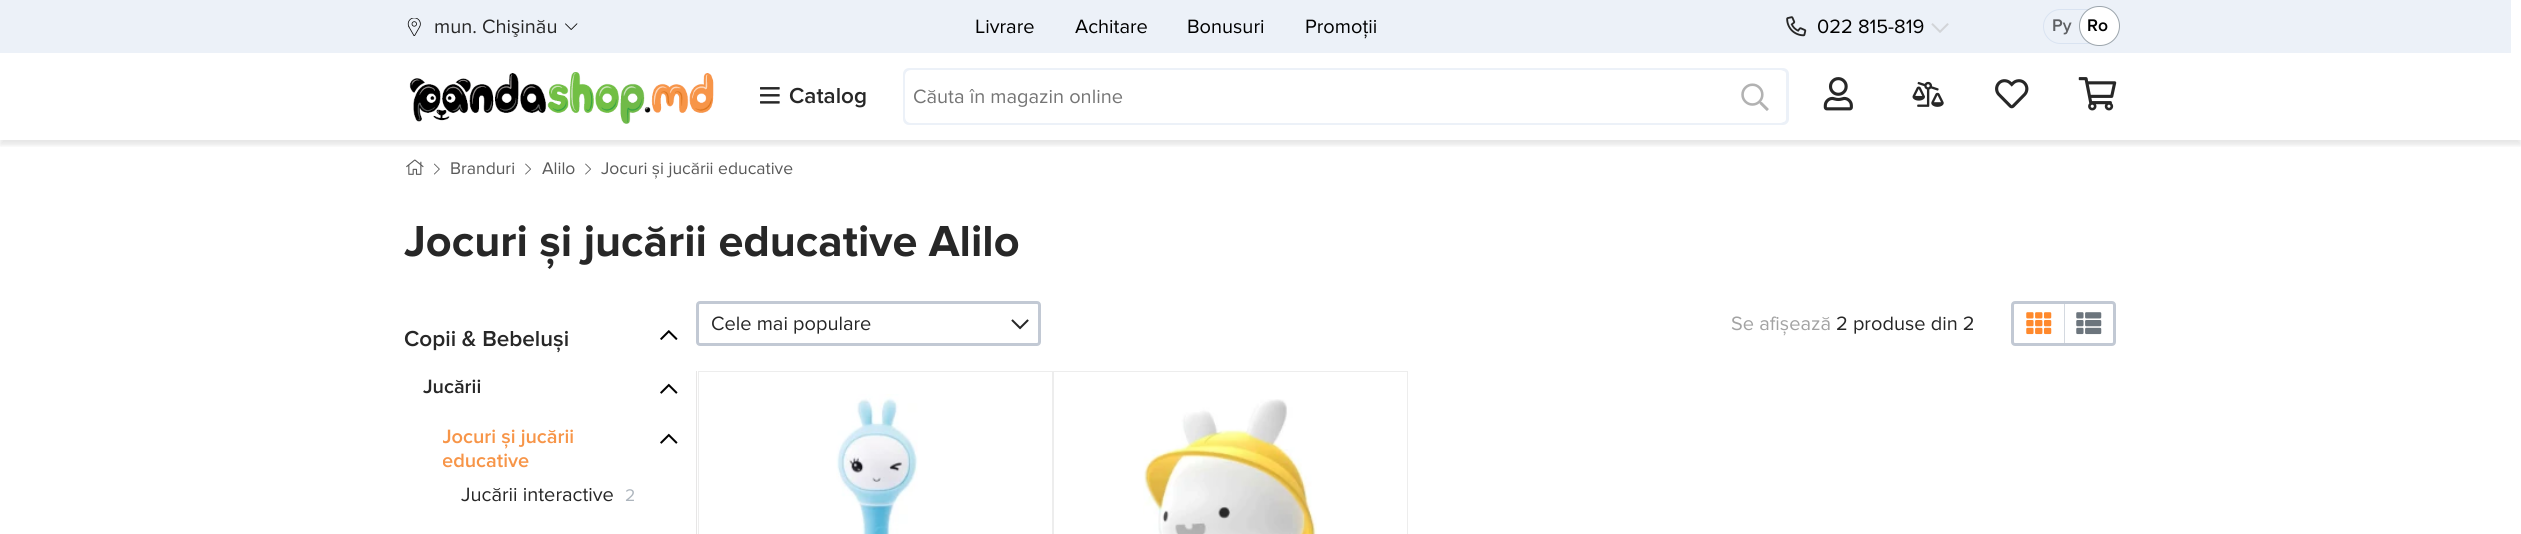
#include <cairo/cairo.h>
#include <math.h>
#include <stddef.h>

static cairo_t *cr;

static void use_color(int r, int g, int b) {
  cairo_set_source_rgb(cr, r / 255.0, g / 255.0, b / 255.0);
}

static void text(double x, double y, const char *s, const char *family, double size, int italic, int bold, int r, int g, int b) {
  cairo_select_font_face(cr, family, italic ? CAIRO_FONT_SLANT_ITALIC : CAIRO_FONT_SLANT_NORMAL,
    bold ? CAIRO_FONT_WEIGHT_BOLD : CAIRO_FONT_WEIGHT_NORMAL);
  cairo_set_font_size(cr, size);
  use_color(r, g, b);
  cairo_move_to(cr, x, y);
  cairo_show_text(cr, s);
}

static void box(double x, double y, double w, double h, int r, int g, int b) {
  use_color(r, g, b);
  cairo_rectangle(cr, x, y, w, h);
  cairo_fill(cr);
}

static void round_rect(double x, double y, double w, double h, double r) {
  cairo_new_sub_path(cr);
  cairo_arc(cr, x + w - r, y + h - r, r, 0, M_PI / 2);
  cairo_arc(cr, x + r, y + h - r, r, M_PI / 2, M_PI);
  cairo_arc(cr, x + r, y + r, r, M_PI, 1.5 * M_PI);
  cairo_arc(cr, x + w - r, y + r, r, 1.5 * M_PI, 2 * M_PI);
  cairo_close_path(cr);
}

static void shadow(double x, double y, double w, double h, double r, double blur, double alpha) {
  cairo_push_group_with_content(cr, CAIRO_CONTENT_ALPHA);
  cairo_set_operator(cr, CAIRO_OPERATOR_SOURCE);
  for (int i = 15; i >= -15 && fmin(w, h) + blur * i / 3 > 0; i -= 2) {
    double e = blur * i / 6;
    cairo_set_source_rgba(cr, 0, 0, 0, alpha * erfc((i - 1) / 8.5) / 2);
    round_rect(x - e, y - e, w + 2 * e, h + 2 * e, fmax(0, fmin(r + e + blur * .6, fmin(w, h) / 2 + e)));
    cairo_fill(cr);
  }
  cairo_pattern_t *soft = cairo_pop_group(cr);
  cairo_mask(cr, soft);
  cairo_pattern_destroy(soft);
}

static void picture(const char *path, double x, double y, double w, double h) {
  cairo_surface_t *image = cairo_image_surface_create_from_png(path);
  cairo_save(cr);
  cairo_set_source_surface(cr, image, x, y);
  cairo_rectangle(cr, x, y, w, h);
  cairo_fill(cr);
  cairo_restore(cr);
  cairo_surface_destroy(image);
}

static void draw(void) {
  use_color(255, 255, 255);
  cairo_paint(cr);
  box(0, 0, 2511, 53, 236, 241, 248);
  cairo_save(cr);
  cairo_rectangle(cr, 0, 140, 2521, 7);
  cairo_clip(cr);
  use_color(0, 0, 0);
  shadow(0, 5, 2521, 140, 0, 2.5, 0.1);
  cairo_restore(cr);
  picture("img_01.png", 565, 23, 13, 7);
  picture("img_02.png", 407, 18, 14, 18);
  picture("img_03.png", 1786, 16, 21, 21);
  picture("img_04.png", 1931, 23, 18, 10);
  round_rect(2043.5, 9.5, 74, 34, 17);
  use_color(217, 227, 241);
  cairo_set_line_width(cr, 1);
  cairo_stroke(cr);
  use_color(255, 255, 255);
  round_rect(2079.5, 6.5, 40, 39, 19.5);
  cairo_fill_preserve(cr);
  use_color(156, 165, 172);
  cairo_stroke(cr);
  picture("img_05.png", 409, 72, 305, 52);
  picture("img_06.png", 760, 87, 20, 17);
  round_rect(904.5, 69.5, 883, 54, 4.5);
  use_color(236, 241, 248);
  cairo_set_line_width(cr, 3);
  cairo_stroke(cr);
  use_color(255, 255, 255);
  round_rect(905, 70, 881, 53, 6);
  cairo_fill(cr);
  picture("img_07.png", 1741, 83, 28, 28);
  picture("img_08.png", 1823, 77, 30, 34);
  picture("img_09.png", 1912, 81, 32, 26);
  picture("img_10.png", 1995, 79, 34, 30);
  picture("img_11.png", 2078, 77, 39, 34);
  picture("img_12.png", 406, 159, 18, 16);
  picture("img_13.png", 434, 163, 6, 12);
  picture("img_14.png", 525, 163, 6, 12);
  picture("img_14.png", 585, 163, 6, 12);
  round_rect(697.5, 302.5, 342, 42, 2.5);
  use_color(194, 201, 212);
  cairo_stroke(cr);
  picture("img_15.png", 1011, 319, 18, 11);
  round_rect(2012.5, 302.5, 102, 42, 2.5);
  cairo_stroke(cr);
  picture("img_16.png", 2026, 312, 26, 23);
  cairo_set_source_rgba(cr, 0.761, 0.788, 0.831, 0.7);
  cairo_rectangle(cr, 2064, 304, 1, 40);
  cairo_fill(cr);
  picture("img_17.png", 2076, 312, 26, 23);
  box(696, 371, 1, 163, 231, 230, 230);
  cairo_rectangle(cr, 698.5, 371.5, 354, 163);
  use_color(237, 237, 237);
  cairo_set_line_width(cr, 1);
  cairo_stroke(cr);
  picture("img_18.png", 836, 394, 82, 140);
  cairo_rectangle(cr, 1053.5, 371.5, 354, 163);
  cairo_stroke(cr);
  picture("img_19.png", 1143, 399, 174, 135);
  picture("img_20.png", 660, 330, 18, 10);
  picture("img_21.png", 660, 383, 18, 11);
  picture("img_21.png", 660, 433, 18, 11);
  text(434, 33, "mun. Chişinău", "Proxima Nova", 20, 0, 0, 39, 39, 39);
  text(975, 33, "Livrare", "Proxima Nova", 20, 0, 0, 0, 0, 0);
  text(1075, 33, "Achitare", "Proxima Nova", 20, 0, 0, 0, 0, 0);
  text(1187, 33, "Bonusuri", "Proxima Nova", 20, 0, 0, 0, 0, 0);
  text(1305, 33, "Promoții", "Proxima Nova", 20, 0, 0, 0, 0, 0);
  text(1817, 33, "022 815-819", "Proxima Nova", 20, 0, 0, 0, 0, 0);
  text(2052, 31, "Ру", "Proxima Nova SemiBold", 17.5, 0, 0, 94, 96, 99);
  text(2087, 31, "Ro", "Proxima Nova SemiBold", 17.5, 0, 0, 0, 0, 0);
  text(789, 103, "Catalog", "Proxima Nova SemiBold", 22.5, 0, 0, 39, 39, 39);
  text(913, 103, "Căuta în magazin online", "Proxima Nova", 20, 0, 0, 117, 117, 117);
  text(450, 174, "Branduri", "Proxima Nova", 17.5, 0, 0, 89, 89, 89);
  text(542, 174, "Alilo", "Proxima Nova", 17.5, 0, 0, 89, 89, 89);
  text(601, 174, "Jocuri și jucării educative", "Proxima Nova", 17.5, 0, 0, 89, 89, 89);
  text(404, 256, "Jocuri și jucării educative Alilo", "Proxima Nova", 45, 0, 1, 39, 39, 39);
  text(711, 330, "Cele mai populare", "Proxima Nova", 20, 0, 0, 39, 39, 39);
  text(1731, 330, "Se afișează", "Proxima Nova", 20, 0, 0, 163, 163, 163);
  text(1836, 330, "2 produsе din 2", "Proxima Nova", 20, 0, 0, 39, 39, 39);
  text(404, 346, "Copii & Bebeluși", "Proxima Nova SemiBold", 22.5, 0, 0, 39, 39, 39);
  text(423, 393, "Jucării", "Proxima Nova SemiBold", 20, 0, 0, 39, 39, 39);
  cairo_save(cr);
  cairo_rectangle(cr, 443, 416, 235, 107);
  cairo_clip(cr);
  text(442, 443, "Jocuri și jucării", "Proxima Nova SemiBold", 20, 0, 0, 247, 149, 72);
  text(442, 467, "educative", "Proxima Nova SemiBold", 20, 0, 0, 247, 149, 72);
  cairo_restore(cr);
  text(461, 501, "Jucării interactive", "Proxima Nova", 20, 0, 0, 39, 39, 39);
  text(625, 501, "2", "Proxima Nova", 17.5, 0, 0, 173, 181, 189);
}

int main(void) {
  cairo_surface_t *surface = cairo_image_surface_create(CAIRO_FORMAT_RGB24, 2521, 534);
  cr = cairo_create(surface);
  cairo_font_options_t *options = cairo_font_options_create();
  cairo_font_options_set_hint_metrics(options, CAIRO_HINT_METRICS_OFF);
  cairo_font_options_set_hint_style(options, CAIRO_HINT_STYLE_NONE);
  cairo_set_font_options(cr, options);
  cairo_set_miter_limit(cr, 4);
  draw();
  cairo_surface_write_to_png(surface, "out.png");
  cairo_font_options_destroy(options);
  cairo_destroy(cr);
  cairo_surface_destroy(surface);
  return 0;
}
